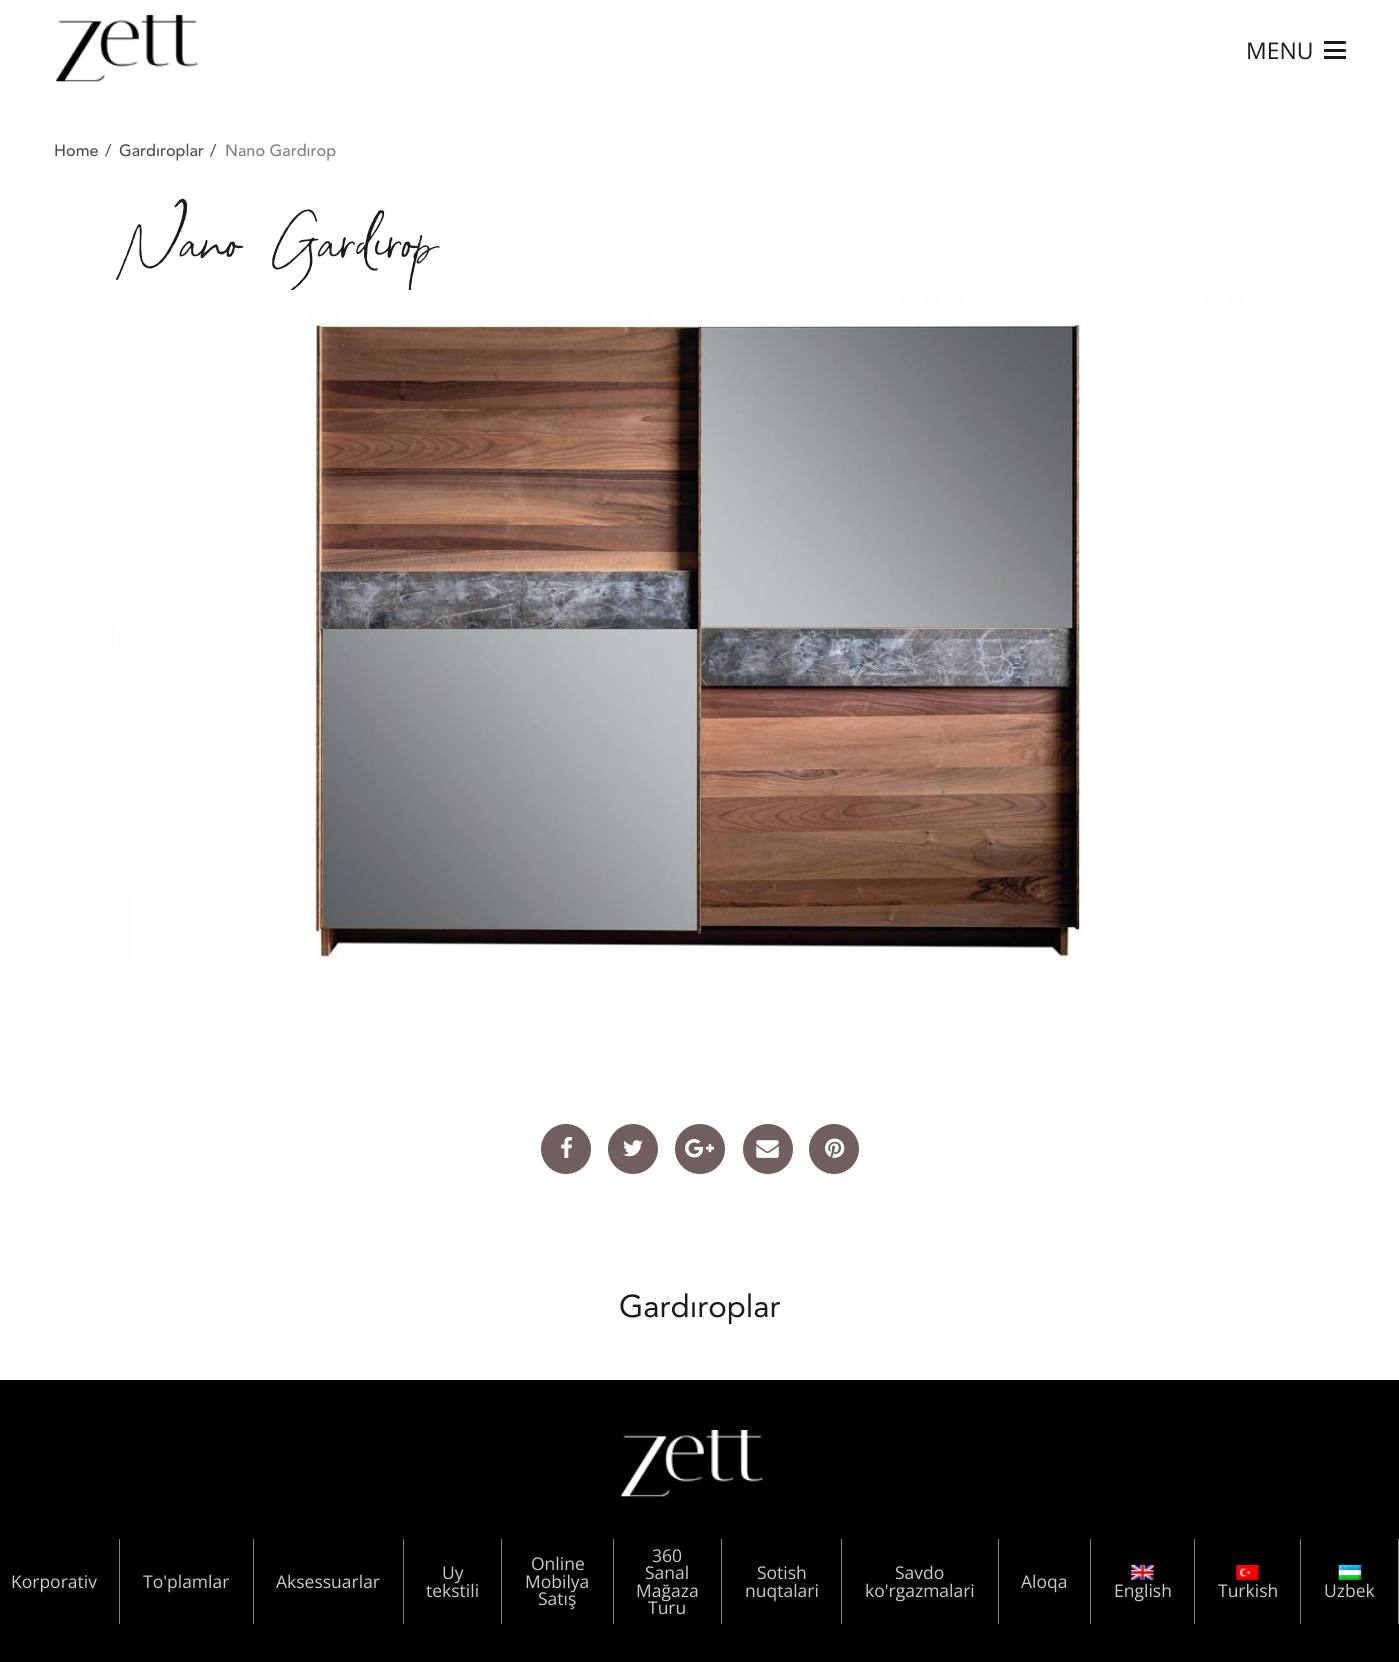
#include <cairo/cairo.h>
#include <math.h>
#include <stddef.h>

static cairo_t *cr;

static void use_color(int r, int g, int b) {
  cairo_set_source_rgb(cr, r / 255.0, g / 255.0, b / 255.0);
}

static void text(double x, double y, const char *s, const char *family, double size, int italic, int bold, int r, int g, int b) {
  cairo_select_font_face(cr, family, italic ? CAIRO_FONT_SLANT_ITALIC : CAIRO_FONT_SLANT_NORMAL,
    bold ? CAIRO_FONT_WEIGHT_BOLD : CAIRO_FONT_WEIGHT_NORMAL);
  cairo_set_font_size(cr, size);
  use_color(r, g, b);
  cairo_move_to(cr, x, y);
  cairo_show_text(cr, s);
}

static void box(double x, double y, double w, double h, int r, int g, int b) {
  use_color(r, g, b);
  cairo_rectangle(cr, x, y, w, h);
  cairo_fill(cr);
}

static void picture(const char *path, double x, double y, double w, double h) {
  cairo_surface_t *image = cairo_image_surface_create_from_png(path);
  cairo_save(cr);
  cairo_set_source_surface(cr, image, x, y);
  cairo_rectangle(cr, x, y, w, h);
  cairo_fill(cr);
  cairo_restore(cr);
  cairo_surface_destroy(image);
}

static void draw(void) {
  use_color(255, 255, 255);
  cairo_paint(cr);
  picture("img_01.png", 56, 14, 142, 68);
  box(1324, 49, 22, 3, 26, 26, 26);
  box(1324, 41, 22, 3, 26, 26, 26);
  box(1324, 56, 22, 3, 26, 26, 26);
  cairo_save(cr);
  cairo_rectangle(cr, 113, 290, 1168, 701);
  cairo_clip(cr);
  cairo_rectangle(cr, 113.5, 625.5, 1170, 25);
  use_color(249, 249, 249);
  cairo_set_line_width(cr, 1);
  cairo_stroke(cr);
  cairo_restore(cr);
  use_color(113, 94, 94);
  cairo_arc(cr, 566, 1149, 25, 0, 2 * M_PI);
  cairo_fill(cr);
  picture("img_03.png", 561, 1137, 12, 21);
  cairo_arc(cr, 633, 1149, 25, 0, 2 * M_PI);
  cairo_fill(cr);
  picture("img_04.png", 623, 1140, 20, 17);
  cairo_arc(cr, 700, 1149, 25, 0, 2 * M_PI);
  cairo_fill(cr);
  picture("img_05.png", 685, 1139, 29, 19);
  cairo_arc(cr, 768, 1149, 25, 0, 2 * M_PI);
  cairo_fill(cr);
  picture("img_06.png", 756, 1140, 23, 18);
  cairo_arc(cr, 834, 1149, 25, 0, 2 * M_PI);
  cairo_fill(cr);
  picture("img_07.png", 825, 1138, 20, 20);
  box(0, 1380, 1399, 282, 0, 0, 0);
  picture("img_08.png", 621, 1430, 142, 67);
  box(119, 1539, 1, 85, 128, 128, 128);
  box(253, 1539, 1, 85, 128, 128, 128);
  box(403, 1539, 1, 85, 128, 128, 128);
  box(501, 1539, 1, 85, 128, 128, 128);
  box(613, 1539, 1, 85, 128, 128, 128);
  box(721, 1539, 1, 85, 128, 128, 128);
  box(841, 1539, 1, 85, 128, 128, 128);
  box(998, 1539, 1, 85, 128, 128, 128);
  box(1090, 1539, 1, 85, 128, 128, 128);
  box(1194, 1539, 1, 85, 128, 128, 128);
  picture("img_09.png", 1131, 1565, 23, 15);
  box(1300, 1539, 1, 85, 128, 128, 128);
  picture("img_10.png", 1236, 1565, 23, 15);
  box(1398, 1539, 1, 85, 128, 128, 128);
  picture("img_11.png", 1338, 1565, 24, 15);
  text(1246, 59, "MENU", "Open Sans", 23, 0, 0, 27, 25, 25);
  text(54, 156, "Home", "Avenir Medium", 16.25, 0, 0, 77, 77, 77);
  text(105, 156, "/", "Avenir Medium", 16.25, 0, 0, 77, 77, 77);
  text(119, 156, "Gardıroplar", "Avenir Medium", 16.25, 0, 0, 77, 77, 77);
  text(210, 156, "/", "Avenir Medium", 16.25, 0, 0, 77, 77, 77);
  text(225, 156, "Nano Gardırop", "Avenir Medium", 16.25, 0, 0, 128, 128, 128);
  text(113, 275, "Nano Gardırop", "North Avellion", 105, 0, 0, 27, 25, 25);
  picture("img_02.png", 114, 290, 1167, 671);
  text(619, 1317, "Gardıroplar", "Avenir", 31.25, 0, 0, 27, 25, 25);
  text(11, 1588, "Korporativ", "Open Sans", 17.5, 0, 0, 204, 204, 204);
  text(143, 1588, "To'plamlar", "Open Sans", 17.5, 0, 0, 204, 204, 204);
  text(276, 1588, "Aksessuarlar", "Open Sans", 17.5, 0, 0, 204, 204, 204);
  text(442, 1579, "Uy", "Open Sans", 17.5, 0, 0, 204, 204, 204);
  text(426, 1597, "tekstili", "Open Sans", 17.5, 0, 0, 204, 204, 204);
  text(531, 1570, "Online", "Open Sans", 17.5, 0, 0, 204, 204, 204);
  text(525, 1588, "Mobilya", "Open Sans", 17.5, 0, 0, 204, 204, 204);
  text(538, 1605, "Satış", "Open Sans", 17.5, 0, 0, 204, 204, 204);
  text(652, 1562, "360", "Open Sans", 17.5, 0, 0, 204, 204, 204);
  text(645, 1579, "Sanal", "Open Sans", 17.5, 0, 0, 204, 204, 204);
  text(636, 1597, "Mağaza", "Open Sans", 17.5, 0, 0, 204, 204, 204);
  text(648, 1614, "Turu", "Open Sans", 17.5, 0, 0, 204, 204, 204);
  text(757, 1579, "Sotish", "Open Sans", 17.5, 0, 0, 204, 204, 204);
  text(745, 1597, "nuqtalari", "Open Sans", 17.5, 0, 0, 204, 204, 204);
  text(895, 1579, "Savdo", "Open Sans", 17.5, 0, 0, 204, 204, 204);
  text(865, 1597, "ko'rgazmalari", "Open Sans", 17.5, 0, 0, 204, 204, 204);
  text(1021, 1588, "Aloqa", "Open Sans", 17.5, 0, 0, 204, 204, 204);
  text(1114, 1597, "English", "Open Sans", 17.5, 0, 0, 204, 204, 204);
  text(1218, 1597, "Turkish", "Open Sans", 17.5, 0, 0, 204, 204, 204);
  text(1324, 1597, "Uzbek", "Open Sans", 17.5, 0, 0, 204, 204, 204);
}

int main(void) {
  cairo_surface_t *surface = cairo_image_surface_create(CAIRO_FORMAT_RGB24, 1399, 1662);
  cr = cairo_create(surface);
  cairo_font_options_t *options = cairo_font_options_create();
  cairo_font_options_set_hint_metrics(options, CAIRO_HINT_METRICS_OFF);
  cairo_font_options_set_hint_style(options, CAIRO_HINT_STYLE_NONE);
  cairo_set_font_options(cr, options);
  cairo_set_miter_limit(cr, 4);
  draw();
  cairo_surface_write_to_png(surface, "out.png");
  cairo_font_options_destroy(options);
  cairo_destroy(cr);
  cairo_surface_destroy(surface);
  return 0;
}
